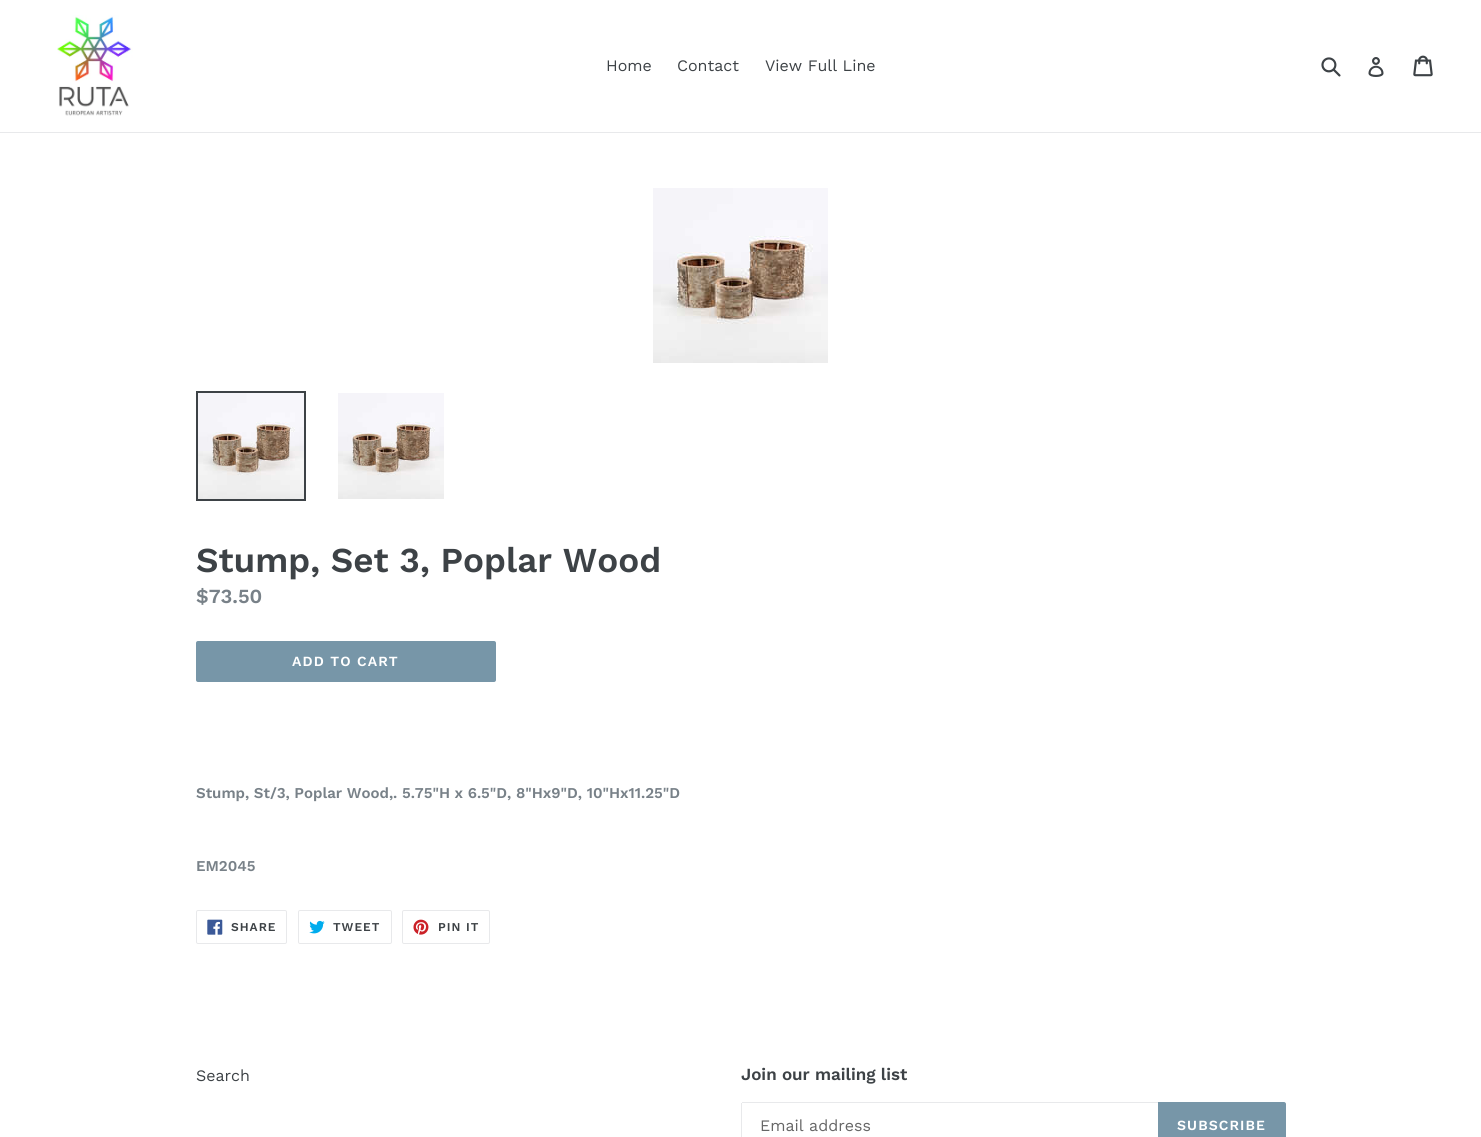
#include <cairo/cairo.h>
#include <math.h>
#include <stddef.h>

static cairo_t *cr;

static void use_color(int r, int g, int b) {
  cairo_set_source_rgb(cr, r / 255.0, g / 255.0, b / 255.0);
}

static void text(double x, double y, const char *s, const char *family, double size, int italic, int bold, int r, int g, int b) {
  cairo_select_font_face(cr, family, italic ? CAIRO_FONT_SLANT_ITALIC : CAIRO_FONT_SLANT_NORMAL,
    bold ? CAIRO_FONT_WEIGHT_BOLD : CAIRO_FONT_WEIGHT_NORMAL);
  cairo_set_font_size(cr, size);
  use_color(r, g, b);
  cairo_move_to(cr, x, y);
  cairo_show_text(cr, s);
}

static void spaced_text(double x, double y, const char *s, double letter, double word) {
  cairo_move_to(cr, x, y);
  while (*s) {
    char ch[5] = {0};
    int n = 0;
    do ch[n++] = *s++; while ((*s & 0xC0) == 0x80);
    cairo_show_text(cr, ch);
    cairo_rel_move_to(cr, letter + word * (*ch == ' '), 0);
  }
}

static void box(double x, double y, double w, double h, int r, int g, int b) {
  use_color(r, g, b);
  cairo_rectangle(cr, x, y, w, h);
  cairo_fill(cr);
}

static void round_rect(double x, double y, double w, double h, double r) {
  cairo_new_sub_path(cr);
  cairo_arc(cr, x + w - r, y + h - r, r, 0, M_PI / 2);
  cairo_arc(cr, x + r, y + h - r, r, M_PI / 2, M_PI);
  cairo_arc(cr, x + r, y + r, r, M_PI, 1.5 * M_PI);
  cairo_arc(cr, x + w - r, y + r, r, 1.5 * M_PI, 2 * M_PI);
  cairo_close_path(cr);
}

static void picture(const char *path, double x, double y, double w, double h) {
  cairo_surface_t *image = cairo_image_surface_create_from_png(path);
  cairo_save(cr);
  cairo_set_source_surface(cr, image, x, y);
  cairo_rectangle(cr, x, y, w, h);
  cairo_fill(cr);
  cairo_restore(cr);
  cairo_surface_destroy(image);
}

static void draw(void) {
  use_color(255, 255, 255);
  cairo_paint(cr);
  box(0, 132, 1481, 1, 232, 233, 235);
  picture("img_01.png", 57, 15, 76, 101);
  picture("img_02.png", 1321, 57, 20, 20);
  picture("img_03.png", 1368, 57, 16, 20);
  picture("img_04.png", 1413, 55, 20, 22);
  picture("img_05.png", 653, 188, 175, 175);
  cairo_rectangle(cr, 197, 392, 108, 108);
  use_color(61, 66, 70);
  cairo_stroke(cr);
  picture("img_06.png", 198, 393, 106, 106);
  picture("img_06.png", 338, 393, 106, 106);
  use_color(119, 150, 168);
  round_rect(196, 641, 300, 41, 2);
  cairo_fill(cr);
  round_rect(196.5, 910.5, 90, 33, 1.5);
  use_color(232, 233, 235);
  cairo_set_line_width(cr, 1);
  cairo_stroke(cr);
  picture("img_07.png", 207, 919, 16, 16);
  round_rect(298.5, 910.5, 93, 33, 1.5);
  cairo_stroke(cr);
  picture("img_08.png", 309, 920, 16, 14);
  round_rect(402.5, 910.5, 87, 33, 1.5);
  cairo_stroke(cr);
  picture("img_09.png", 413, 919, 16, 16);
  box(742, 1102, 416, 1, 232, 233, 235);
  box(741, 1103, 1, 34, 232, 233, 235);
  use_color(119, 150, 168);
  cairo_new_path(cr);
  cairo_move_to(cr, 1158, 1102);
  cairo_line_to(cr, 1284, 1102);
  cairo_curve_to(cr, 1285, 1102, 1286, 1103, 1286, 1104);
  cairo_line_to(cr, 1286, 1137);
  cairo_curve_to(cr, 1286, 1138, 1285, 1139, 1284, 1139);
  cairo_line_to(cr, 1158, 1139);
  cairo_close_path(cr);
  cairo_fill(cr);
  text(606, 71, "Home", "Work Sans", 16, 0, 0, 61, 66, 70);
  text(677, 71, "Contact", "Work Sans", 16, 0, 0, 61, 66, 70);
  text(765, 71, "View Full Line", "Work Sans", 16, 0, 0, 61, 66, 70);
  text(196, 572, "Stump, Set 3, Poplar Wood", "Work Sans SemiBold", 35, 0, 0, 61, 66, 70);
  text(196, 603, "$73.50", "Work Sans SemiBold", 20, 0, 0, 120, 129, 136);
  cairo_set_font_size(cr, 14);
  use_color(255, 255, 255);
  spaced_text(292, 666, "ADD TO CART", 1.1, 0);
  text(196, 798, "Stump, St/3, Poplar Wood,. 5.75\"H x 6.5\"D, 8\"Hx9\"D, 10\"Hx11.25\"D", "Work Sans SemiBold", 15, 0, 0, 120, 129, 136);
  text(196, 871, "EM2045", "Work Sans SemiBold", 15, 0, 0, 120, 129, 136);
  cairo_set_font_size(cr, 12);
  use_color(61, 66, 70);
  spaced_text(231, 931, "SHARE", 1, 0);
  spaced_text(333, 931, "TWEET", 1, 0);
  spaced_text(438, 931, "PIN IT", 1, 0);
  text(196, 1081, "Search", "Work Sans", 16, 0, 0, 61, 66, 70);
  text(741, 1080, "Join our mailing list", "Work Sans SemiBold", 17, 0, 0, 61, 66, 70);
  text(760, 1131, "Email address", "Work Sans", 16, 0, 0, 102, 102, 102);
  cairo_select_font_face(cr, "Work Sans SemiBold", CAIRO_FONT_SLANT_NORMAL, CAIRO_FONT_WEIGHT_NORMAL);
  cairo_set_font_size(cr, 14);
  use_color(255, 255, 255);
  spaced_text(1177, 1130, "SUBSCRIBE", 1.1, 0);
}

int main(void) {
  cairo_surface_t *surface = cairo_image_surface_create(CAIRO_FORMAT_RGB24, 1481, 1137);
  cr = cairo_create(surface);
  cairo_font_options_t *options = cairo_font_options_create();
  cairo_font_options_set_hint_metrics(options, CAIRO_HINT_METRICS_OFF);
  cairo_font_options_set_hint_style(options, CAIRO_HINT_STYLE_NONE);
  cairo_set_font_options(cr, options);
  cairo_set_miter_limit(cr, 4);
  draw();
  cairo_surface_write_to_png(surface, "out.png");
  cairo_font_options_destroy(options);
  cairo_destroy(cr);
  cairo_surface_destroy(surface);
  return 0;
}
